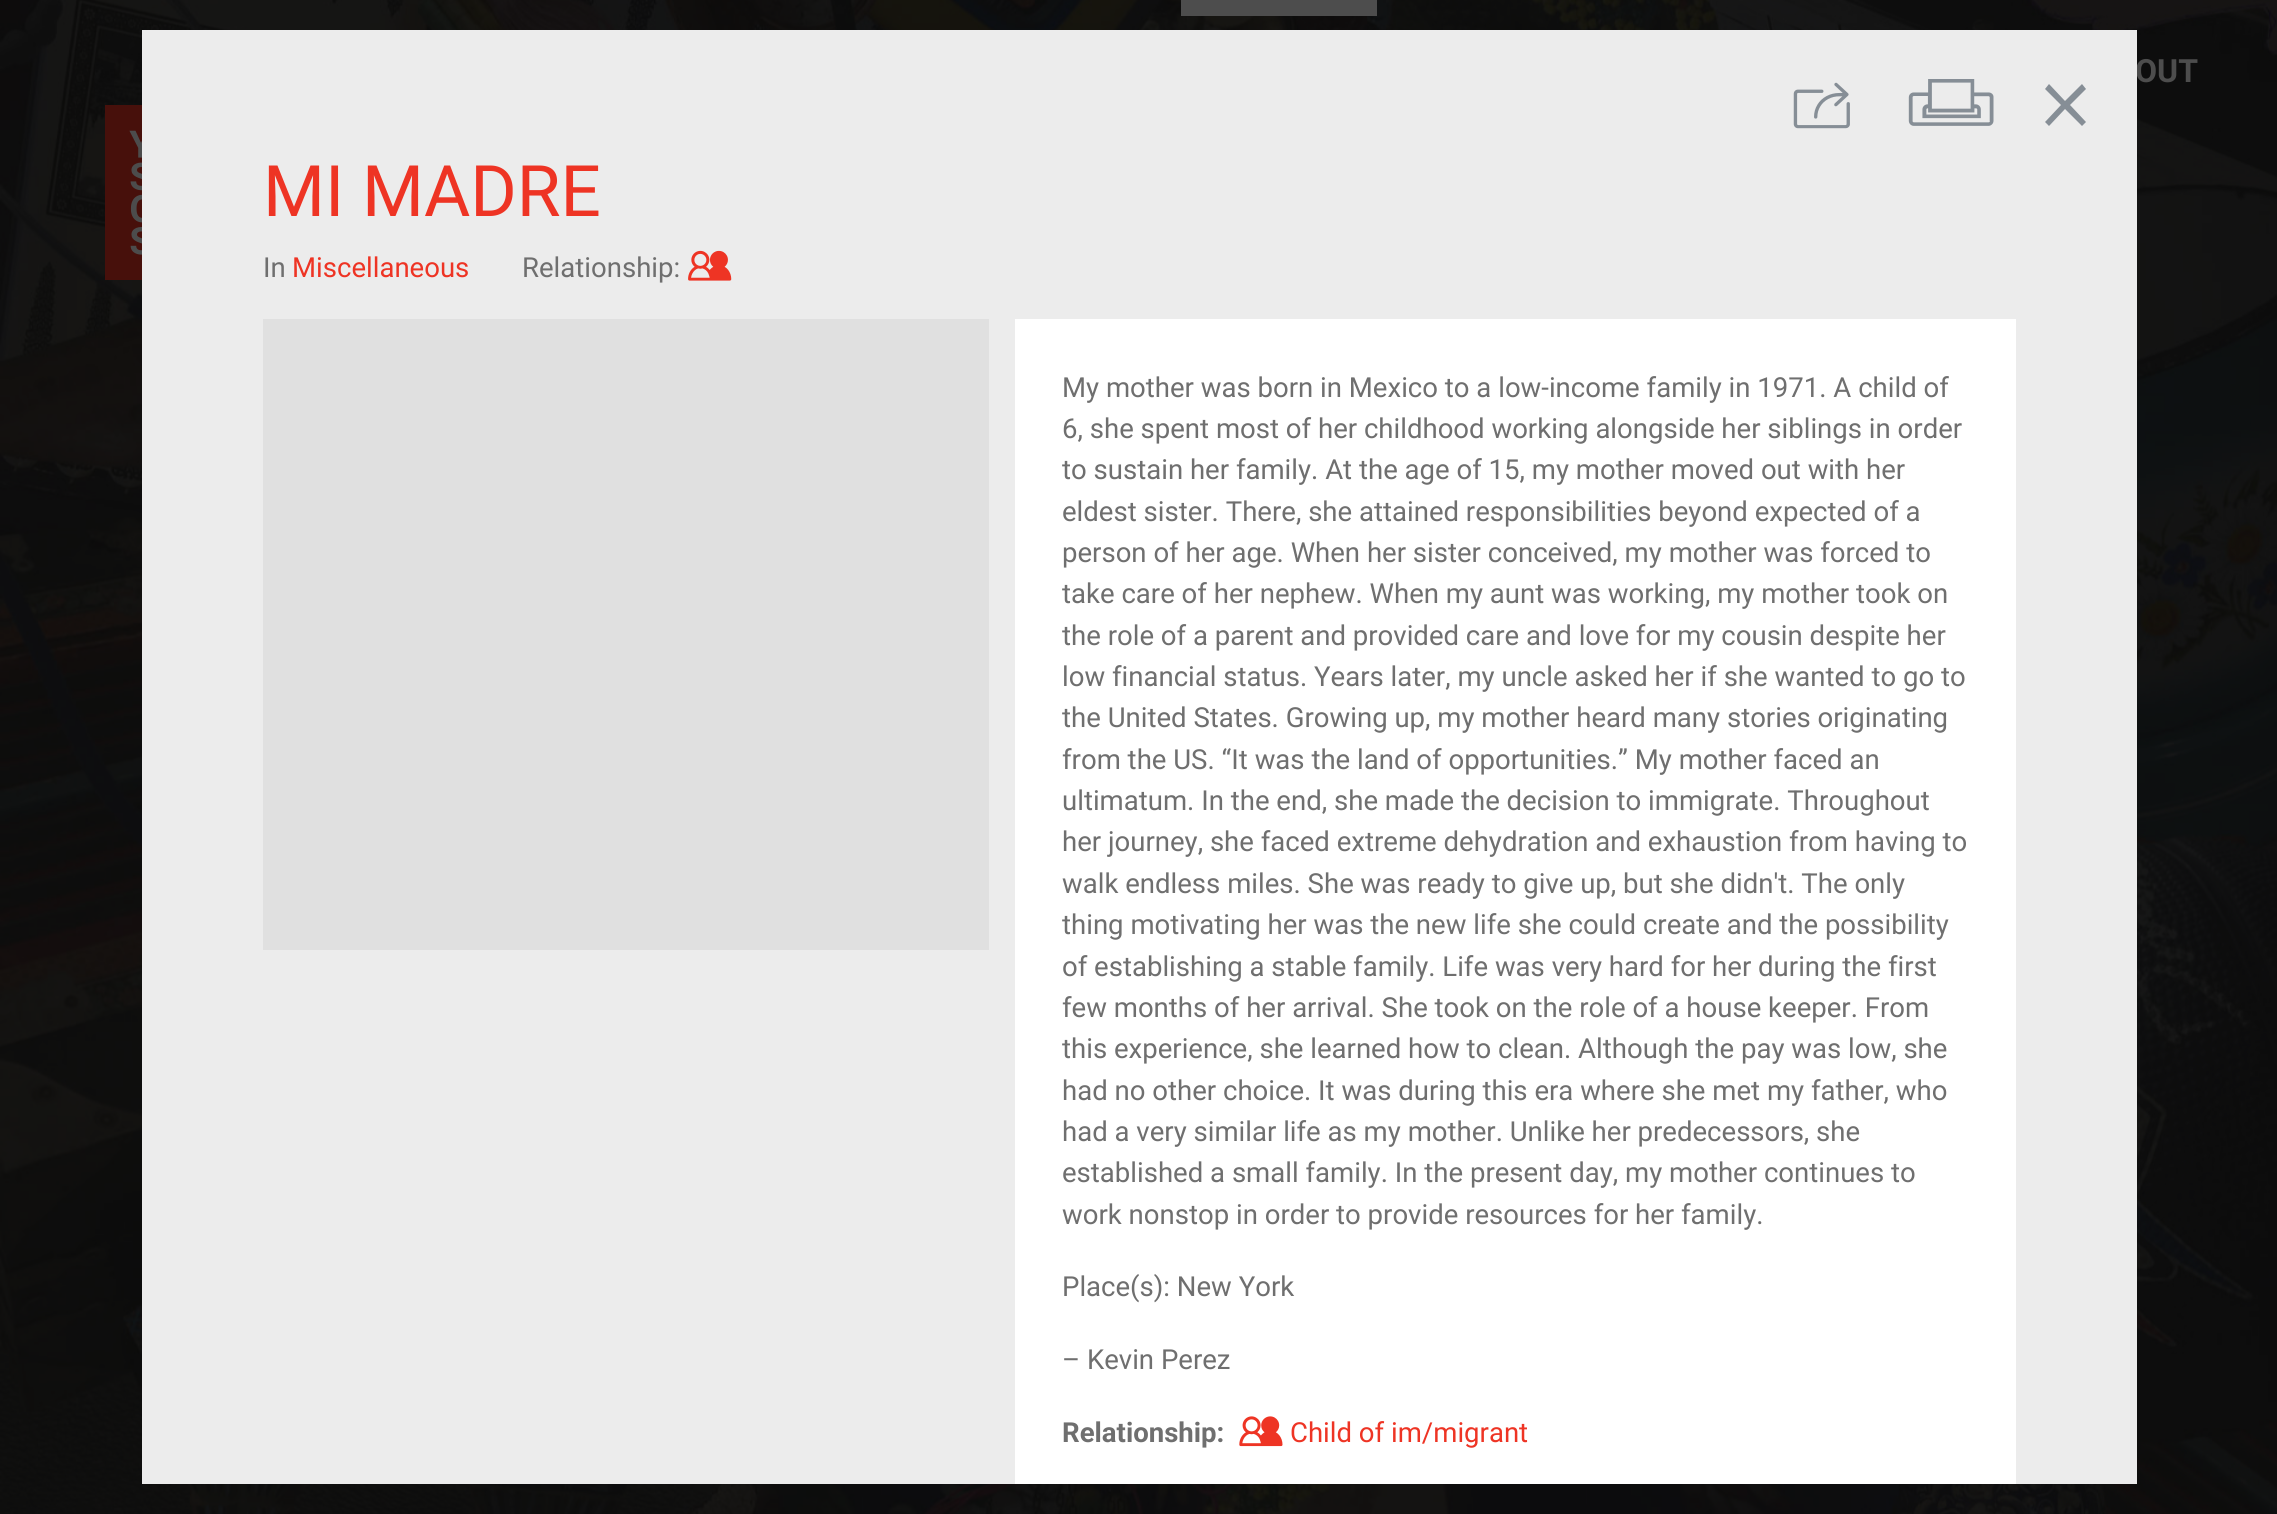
#include <cairo/cairo.h>
#include <math.h>
#include <stddef.h>

static cairo_t *cr;

static void use_color(int r, int g, int b) {
  cairo_set_source_rgb(cr, r / 255.0, g / 255.0, b / 255.0);
}

static void text(double x, double y, const char *s, const char *family, double size, int italic, int bold, int r, int g, int b) {
  cairo_select_font_face(cr, family, italic ? CAIRO_FONT_SLANT_ITALIC : CAIRO_FONT_SLANT_NORMAL,
    bold ? CAIRO_FONT_WEIGHT_BOLD : CAIRO_FONT_WEIGHT_NORMAL);
  cairo_set_font_size(cr, size);
  use_color(r, g, b);
  cairo_move_to(cr, x, y);
  cairo_show_text(cr, s);
}

static void box(double x, double y, double w, double h, int r, int g, int b) {
  use_color(r, g, b);
  cairo_rectangle(cr, x, y, w, h);
  cairo_fill(cr);
}

static void picture(const char *path, double x, double y, double w, double h) {
  cairo_surface_t *image = cairo_image_surface_create_from_png(path);
  cairo_save(cr);
  cairo_set_source_surface(cr, image, x, y);
  cairo_rectangle(cr, x, y, w, h);
  cairo_fill(cr);
  cairo_restore(cr);
  cairo_surface_destroy(image);
}

static void draw(void) {
  use_color(255, 255, 255);
  cairo_paint(cr);
  picture("img_01.png", 0, 0, 2277, 1514);
  box(1181, 0, 196, 16, 77, 77, 77);
  picture("img_02.png", 105, 105, 37, 175);
  text(2135, 82, "OUT", "Roboto", 32, 0, 1, 77, 77, 77);
  box(142, 30, 1995, 1454, 236, 236, 236);
  picture("img_03.png", 1793, 82, 57, 47);
  picture("img_04.png", 1908, 79, 86, 47);
  use_color(134, 142, 150);
  cairo_new_path(cr);
  cairo_move_to(cr, 2086, 89);
  cairo_line_to(cr, 2070, 105);
  cairo_line_to(cr, 2086, 122);
  cairo_line_to(cr, 2082, 126);
  cairo_line_to(cr, 2065, 109);
  cairo_line_to(cr, 2049, 126);
  cairo_line_to(cr, 2045, 122);
  cairo_line_to(cr, 2061, 105);
  cairo_line_to(cr, 2045, 89);
  cairo_line_to(cr, 2049, 84);
  cairo_line_to(cr, 2065, 101);
  cairo_line_to(cr, 2082, 84);
  cairo_close_path(cr);
  cairo_fill(cr);
  text(263, 216, "MI MADRE", "Roboto", 71, 0, 0, 238, 52, 36);
  text(263, 277, "In", "Roboto", 27.55, 0, 0, 111, 111, 111);
  text(292, 277, "Miscellaneous", "Roboto", 27.55, 0, 0, 238, 52, 36);
  text(522, 277, "Relationship:", "Roboto", 27.55, 0, 0, 111, 111, 111);
  picture("img_05.png", 688, 250, 44, 31);
  box(263, 319, 726, 631, 224, 224, 224);
  box(1015, 319, 1001, 1165, 255, 255, 255);
  text(1062, 397, "My mother was born in Mexico to a low-income family in 1971. A child of", "Roboto", 27.55, 0, 0, 111, 111, 111);
  text(1062, 438, "6, she spent most of her childhood working alongside her siblings in order", "Roboto", 27.55, 0, 0, 111, 111, 111);
  text(1062, 479, "to sustain her family. At the age of 15, my mother moved out with her", "Roboto", 27.55, 0, 0, 111, 111, 111);
  text(1062, 521, "eldest sister. There, she attained responsibilities beyond expected of a", "Roboto", 27.55, 0, 0, 111, 111, 111);
  text(1062, 562, "person of her age. When her sister conceived, my mother was forced to", "Roboto", 27.55, 0, 0, 111, 111, 111);
  text(1062, 603, "take care of her nephew. When my aunt was working, my mother took on", "Roboto", 27.55, 0, 0, 111, 111, 111);
  text(1062, 645, "the role of a parent and provided care and love for my cousin despite her", "Roboto", 27.55, 0, 0, 111, 111, 111);
  text(1062, 686, "low financial status. Years later, my uncle asked her if she wanted to go to", "Roboto", 27.55, 0, 0, 111, 111, 111);
  text(1062, 727, "the United States. Growing up, my mother heard many stories originating", "Roboto", 27.55, 0, 0, 111, 111, 111);
  text(1062, 769, "from the US. “It was the land of opportunities.” My mother faced an", "Roboto", 27.55, 0, 0, 111, 111, 111);
  text(1062, 810, "ultimatum. In the end, she made the decision to immigrate. Throughout", "Roboto", 27.55, 0, 0, 111, 111, 111);
  text(1062, 851, "her journey, she faced extreme dehydration and exhaustion from having to", "Roboto", 27.55, 0, 0, 111, 111, 111);
  text(1062, 893, "walk endless miles. She was ready to give up, but she didn't. The only", "Roboto", 27.55, 0, 0, 111, 111, 111);
  text(1062, 934, "thing motivating her was the new life she could create and the possibility", "Roboto", 27.55, 0, 0, 111, 111, 111);
  text(1062, 976, "of establishing a stable family. Life was very hard for her during the first", "Roboto", 27.55, 0, 0, 111, 111, 111);
  text(1062, 1017, "few months of her arrival. She took on the role of a house keeper. From", "Roboto", 27.55, 0, 0, 111, 111, 111);
  text(1062, 1058, "this experience, she learned how to clean. Although the pay was low, she", "Roboto", 27.55, 0, 0, 111, 111, 111);
  text(1062, 1100, "had no other choice. It was during this era where she met my father, who", "Roboto", 27.55, 0, 0, 111, 111, 111);
  text(1062, 1141, "had a very similar life as my mother. Unlike her predecessors, she", "Roboto", 27.55, 0, 0, 111, 111, 111);
  text(1062, 1182, "established a small family. In the present day, my mother continues to", "Roboto", 27.55, 0, 0, 111, 111, 111);
  text(1062, 1224, "work nonstop in order to provide resources for her family.", "Roboto", 27.55, 0, 0, 111, 111, 111);
  text(1062, 1296, "Place(s): New York", "Roboto", 27.55, 0, 0, 111, 111, 111);
  text(1062, 1369, "– Kevin Perez", "Roboto", 27.55, 0, 0, 111, 111, 111);
  text(1062, 1442, "Relationship:", "Roboto", 27.55, 0, 1, 111, 111, 111);
  picture("img_06.png", 1239, 1416, 44, 31);
  text(1290, 1442, "Child of im/migrant", "Roboto", 27.55, 0, 0, 238, 52, 36);
}

int main(void) {
  cairo_surface_t *surface = cairo_image_surface_create(CAIRO_FORMAT_RGB24, 2277, 1514);
  cr = cairo_create(surface);
  cairo_font_options_t *options = cairo_font_options_create();
  cairo_font_options_set_hint_metrics(options, CAIRO_HINT_METRICS_OFF);
  cairo_font_options_set_hint_style(options, CAIRO_HINT_STYLE_NONE);
  cairo_set_font_options(cr, options);
  cairo_set_miter_limit(cr, 4);
  draw();
  cairo_surface_write_to_png(surface, "out.png");
  cairo_font_options_destroy(options);
  cairo_destroy(cr);
  cairo_surface_destroy(surface);
  return 0;
}
